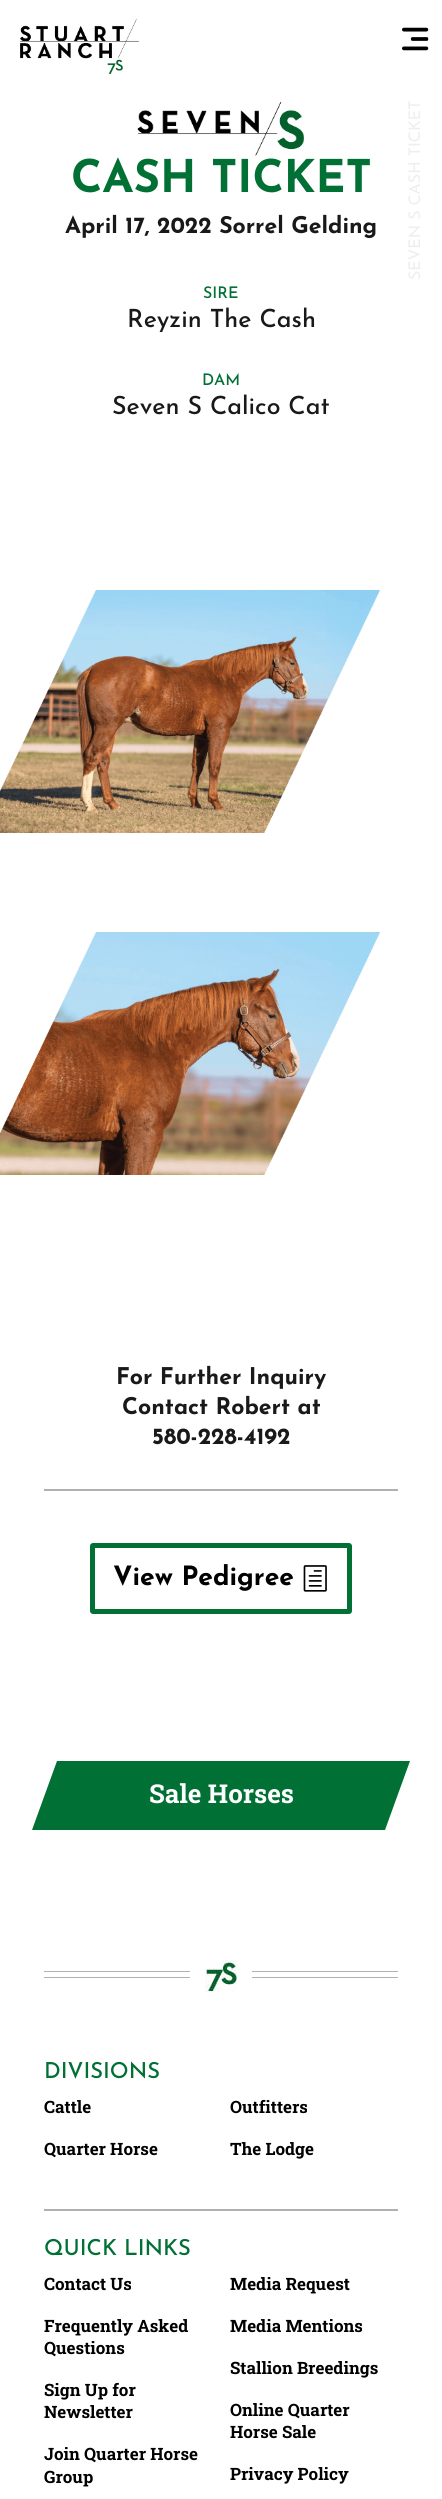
#include <cairo/cairo.h>
#include <math.h>
#include <stddef.h>

static cairo_t *cr;

static void use_color(int r, int g, int b) {
  cairo_set_source_rgb(cr, r / 255.0, g / 255.0, b / 255.0);
}

static void text(double x, double y, const char *s, const char *family, double size, int italic, int bold, int r, int g, int b) {
  cairo_select_font_face(cr, family, italic ? CAIRO_FONT_SLANT_ITALIC : CAIRO_FONT_SLANT_NORMAL,
    bold ? CAIRO_FONT_WEIGHT_BOLD : CAIRO_FONT_WEIGHT_NORMAL);
  cairo_set_font_size(cr, size);
  use_color(r, g, b);
  cairo_move_to(cr, x, y);
  cairo_show_text(cr, s);
}

static void box(double x, double y, double w, double h, int r, int g, int b) {
  use_color(r, g, b);
  cairo_rectangle(cr, x, y, w, h);
  cairo_fill(cr);
}

static void round_rect(double x, double y, double w, double h, double r) {
  cairo_new_sub_path(cr);
  cairo_arc(cr, x + w - r, y + h - r, r, 0, M_PI / 2);
  cairo_arc(cr, x + r, y + h - r, r, M_PI / 2, M_PI);
  cairo_arc(cr, x + r, y + r, r, M_PI, 1.5 * M_PI);
  cairo_arc(cr, x + w - r, y + r, r, 1.5 * M_PI, 2 * M_PI);
  cairo_close_path(cr);
}

static void picture(const char *path, double x, double y, double w, double h) {
  cairo_surface_t *image = cairo_image_surface_create_from_png(path);
  cairo_save(cr);
  cairo_set_source_surface(cr, image, x, y);
  cairo_rectangle(cr, x, y, w, h);
  cairo_fill(cr);
  cairo_restore(cr);
  cairo_surface_destroy(image);
}

static void draw(void) {
  use_color(255, 255, 255);
  cairo_paint(cr);
  picture("img_01.png", 402, 27, 27, 24);
  picture("img_02.png", 20, 18, 119, 56);
  picture("img_03.png", 137, 102, 167, 54);
  picture("img_04.png", 0, 590, 380, 243);
  picture("img_05.png", 0, 932, 380, 243);
  box(44, 1489, 354, 2, 174, 176, 179);
  round_rect(92.5, 1545.5, 257, 66, 0.5);
  use_color(0, 112, 52);
  cairo_set_line_width(cr, 5);
  cairo_stroke(cr);
  picture("img_06.png", 303, 1565, 24, 27);
  cairo_new_path(cr);
  cairo_move_to(cr, 57, 1761);
  cairo_line_to(cr, 410, 1761);
  cairo_line_to(cr, 385, 1830);
  cairo_line_to(cr, 32, 1830);
  cairo_close_path(cr);
  cairo_fill(cr);
  box(44, 1971, 146, 1, 174, 176, 179);
  box(44, 1977, 146, 1, 174, 176, 179);
  picture("img_07.png", 205, 1960, 32, 32);
  box(252, 1971, 146, 1, 174, 176, 179);
  box(252, 1977, 146, 1, 174, 176, 179);
  box(44, 2209, 354, 2, 174, 176, 179);
  text(71, 192, "CASH TICKET", "Josefin Sans", 45, 0, 1, 0, 112, 52);
  text(65, 233, "April 17, 2022 Sorrel Gelding", "Josefin Sans", 23, 0, 1, 26, 24, 24);
  text(203, 298, "SIRE", "Josefin Sans Thin", 16, 0, 0, 0, 112, 52);
  text(127, 327, "Reyzin The Cash", "Josefin Sans Thin", 25, 0, 0, 26, 24, 24);
  text(202, 385, "DAM", "Josefin Sans Thin", 16, 0, 0, 0, 112, 52);
  text(112, 414, "Seven S Calico Cat", "Josefin Sans Thin", 25, 0, 0, 26, 24, 24);
  text(116, 1384, "For Further Inquiry", "Josefin Sans", 23, 0, 1, 26, 24, 24);
  text(122, 1414, "Contact Robert at", "Josefin Sans", 23, 0, 1, 26, 24, 24);
  text(152, 1444, "580-228-4192", "Josefin Sans", 23, 0, 1, 26, 24, 24);
  text(113, 1585, "View Pedigree", "Josefin Sans", 26.5, 0, 1, 0, 0, 0);
  text(149, 1803, "Sale Horses", "Roboto Slab", 26, 0, 1, 255, 255, 255);
  text(44, 2078, "DIVISIONS", "Josefin Sans Thin", 22, 0, 0, 0, 112, 52);
  text(44, 2113, "Cattle", "Roboto Slab", 17, 0, 1, 0, 0, 0);
  text(230, 2113, "Outfitters", "Roboto Slab", 17, 0, 1, 0, 0, 0);
  text(44, 2155, "Quarter Horse", "Roboto Slab", 17, 0, 1, 0, 0, 0);
  text(230, 2155, "The Lodge", "Roboto Slab", 17, 0, 1, 0, 0, 0);
  text(44, 2255, "QUICK LINKS", "Josefin Sans Thin", 22, 0, 0, 0, 112, 52);
  text(44, 2290, "Contact Us", "Roboto Slab", 17, 0, 1, 0, 0, 0);
  text(230, 2290, "Media Request", "Roboto Slab", 17, 0, 1, 0, 0, 0);
  text(44, 2332, "Frequently Asked", "Roboto Slab", 17, 0, 1, 0, 0, 0);
  text(44, 2354, "Questions", "Roboto Slab", 17, 0, 1, 0, 0, 0);
  text(230, 2332, "Media Mentions", "Roboto Slab", 17, 0, 1, 0, 0, 0);
  text(230, 2374, "Stallion Breedings", "Roboto Slab", 17, 0, 1, 0, 0, 0);
  text(44, 2396, "Sign Up for", "Roboto Slab", 17, 0, 1, 0, 0, 0);
  text(44, 2418, "Newsletter", "Roboto Slab", 17, 0, 1, 0, 0, 0);
  text(230, 2416, "Online Quarter", "Roboto Slab", 17, 0, 1, 0, 0, 0);
  text(230, 2438, "Horse Sale", "Roboto Slab", 17, 0, 1, 0, 0, 0);
  text(44, 2460, "Join Quarter Horse", "Roboto Slab", 17, 0, 1, 0, 0, 0);
  text(44, 2483, "Group", "Roboto Slab", 17, 0, 1, 0, 0, 0);
  text(230, 2480, "Privacy Policy", "Roboto Slab", 17, 0, 1, 0, 0, 0);
  cairo_save(cr);
  cairo_translate(cr, 420, 280);
  cairo_rotate(cr, -90 * M_PI / 180);
  text(0, 0, "SEVEN S CASH TICKET", "Josefin Sans", 16, 0, 0, 238, 238, 238);
  cairo_restore(cr);
}

int main(void) {
  cairo_surface_t *surface = cairo_image_surface_create(CAIRO_FORMAT_RGB24, 442, 2499);
  cr = cairo_create(surface);
  cairo_font_options_t *options = cairo_font_options_create();
  cairo_font_options_set_hint_metrics(options, CAIRO_HINT_METRICS_OFF);
  cairo_font_options_set_hint_style(options, CAIRO_HINT_STYLE_NONE);
  cairo_set_font_options(cr, options);
  cairo_set_miter_limit(cr, 4);
  draw();
  cairo_surface_write_to_png(surface, "out.png");
  cairo_font_options_destroy(options);
  cairo_destroy(cr);
  cairo_surface_destroy(surface);
  return 0;
}
